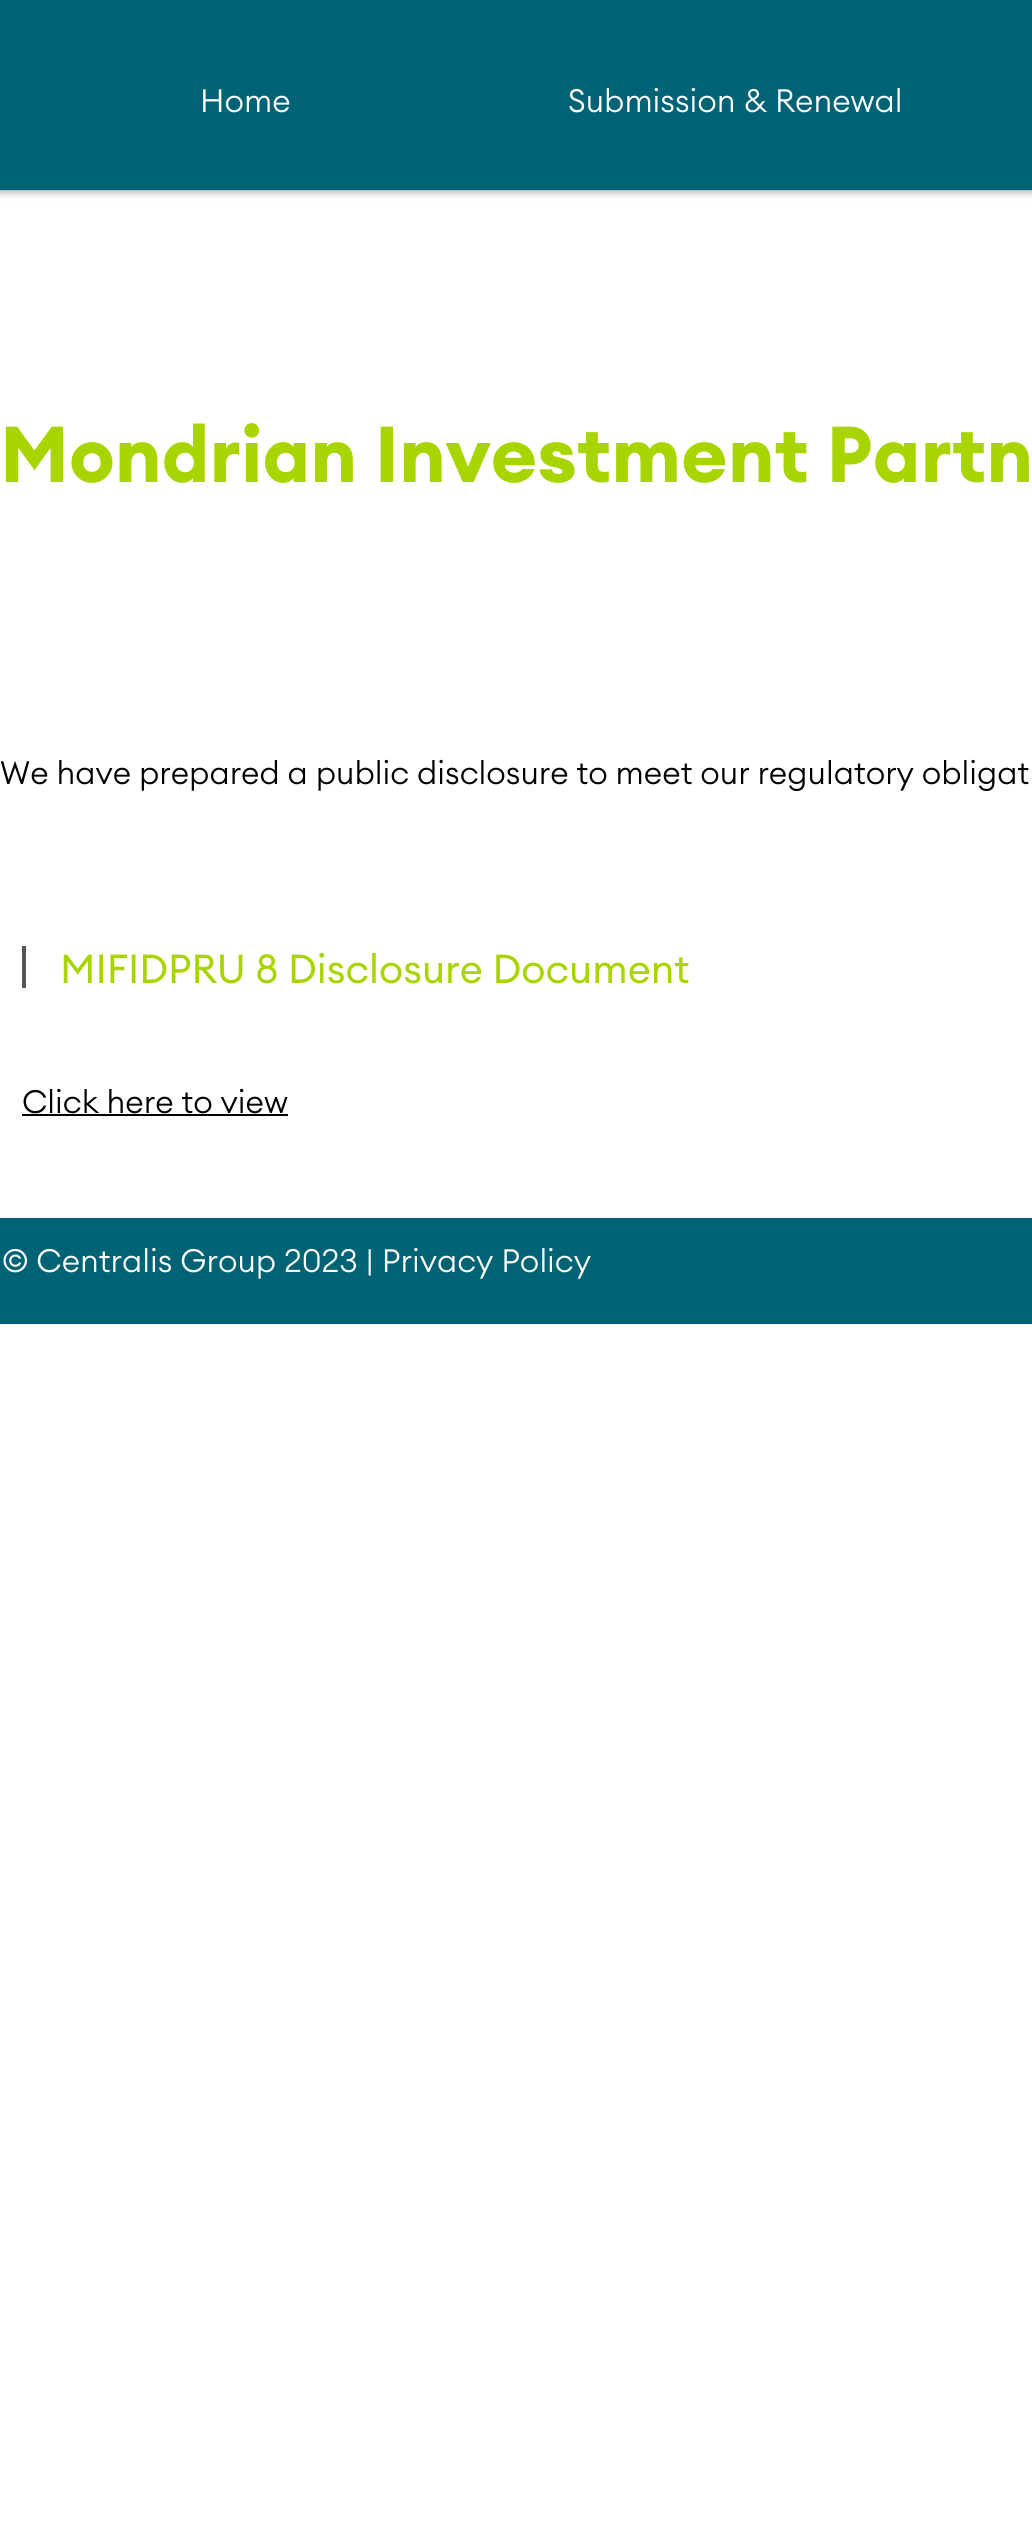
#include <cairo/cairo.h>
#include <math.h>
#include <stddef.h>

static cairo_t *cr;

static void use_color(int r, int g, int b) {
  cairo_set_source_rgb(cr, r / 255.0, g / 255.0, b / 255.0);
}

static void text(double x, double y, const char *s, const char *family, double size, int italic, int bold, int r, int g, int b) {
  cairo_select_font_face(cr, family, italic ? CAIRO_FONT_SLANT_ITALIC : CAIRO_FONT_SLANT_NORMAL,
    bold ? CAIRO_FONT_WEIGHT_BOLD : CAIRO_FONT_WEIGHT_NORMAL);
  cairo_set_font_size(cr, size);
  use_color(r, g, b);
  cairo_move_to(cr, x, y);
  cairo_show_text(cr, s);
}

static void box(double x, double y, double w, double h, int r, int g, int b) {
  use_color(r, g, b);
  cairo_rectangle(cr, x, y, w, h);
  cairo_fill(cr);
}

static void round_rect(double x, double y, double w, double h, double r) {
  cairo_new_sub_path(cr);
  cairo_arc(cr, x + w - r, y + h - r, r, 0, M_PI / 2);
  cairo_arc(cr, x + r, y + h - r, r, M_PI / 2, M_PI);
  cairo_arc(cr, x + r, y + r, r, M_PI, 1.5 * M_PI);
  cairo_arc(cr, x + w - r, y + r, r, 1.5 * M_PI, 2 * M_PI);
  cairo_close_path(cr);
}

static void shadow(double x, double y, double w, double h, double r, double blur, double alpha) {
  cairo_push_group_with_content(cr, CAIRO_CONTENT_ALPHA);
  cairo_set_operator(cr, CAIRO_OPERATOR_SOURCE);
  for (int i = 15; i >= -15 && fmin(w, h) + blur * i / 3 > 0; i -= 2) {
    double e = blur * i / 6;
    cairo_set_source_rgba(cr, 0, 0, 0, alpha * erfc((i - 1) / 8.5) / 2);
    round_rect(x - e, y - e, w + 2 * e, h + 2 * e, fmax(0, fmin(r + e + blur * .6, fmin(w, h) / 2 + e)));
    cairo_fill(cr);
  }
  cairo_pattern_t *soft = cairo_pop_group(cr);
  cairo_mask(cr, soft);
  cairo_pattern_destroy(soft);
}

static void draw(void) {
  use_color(255, 255, 255);
  cairo_paint(cr);
  use_color(0, 0, 0);
  shadow(0, 0, 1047, 190, 0, 5, 0.5);
  box(0, 0, 1032, 190, 0, 99, 117);
  box(22, 946, 4, 42, 85, 85, 85);
  box(22, 1114, 266, 2, 0, 0, 0);
  box(0, 1218, 1032, 106, 0, 99, 117);
  text(200, 112, "Home", "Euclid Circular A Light", 32, 0, 0, 255, 255, 255);
  text(568, 112, "Submission & Renewal", "Euclid Circular A Light", 32, 0, 0, 255, 255, 255);
  text(0, 482, "Mondrian Investment Partn", "Euclid Circular A", 78, 0, 1, 168, 213, 0);
  text(0, 784, "We have prepared a public disclosure to meet our regulatory obligat", "Euclid Circular A Light", 32, 0, 0, 0, 0, 0);
  text(60, 983, "MIFIDPRU 8 Disclosure Document", "Euclid Circular A", 40, 0, 0, 168, 213, 0);
  text(22, 1113, "Click here to view", "Euclid Circular A Light", 32, 0, 0, 0, 0, 0);
  text(2, 1272, "© Centralis Group 2023 | Privacy Policy", "Euclid Circular A Light", 32, 0, 0, 255, 255, 255);
}

int main(void) {
  cairo_surface_t *surface = cairo_image_surface_create(CAIRO_FORMAT_RGB24, 1032, 2536);
  cr = cairo_create(surface);
  cairo_font_options_t *options = cairo_font_options_create();
  cairo_font_options_set_hint_metrics(options, CAIRO_HINT_METRICS_OFF);
  cairo_font_options_set_hint_style(options, CAIRO_HINT_STYLE_NONE);
  cairo_set_font_options(cr, options);
  cairo_set_miter_limit(cr, 4);
  draw();
  cairo_surface_write_to_png(surface, "out.png");
  cairo_font_options_destroy(options);
  cairo_destroy(cr);
  cairo_surface_destroy(surface);
  return 0;
}
